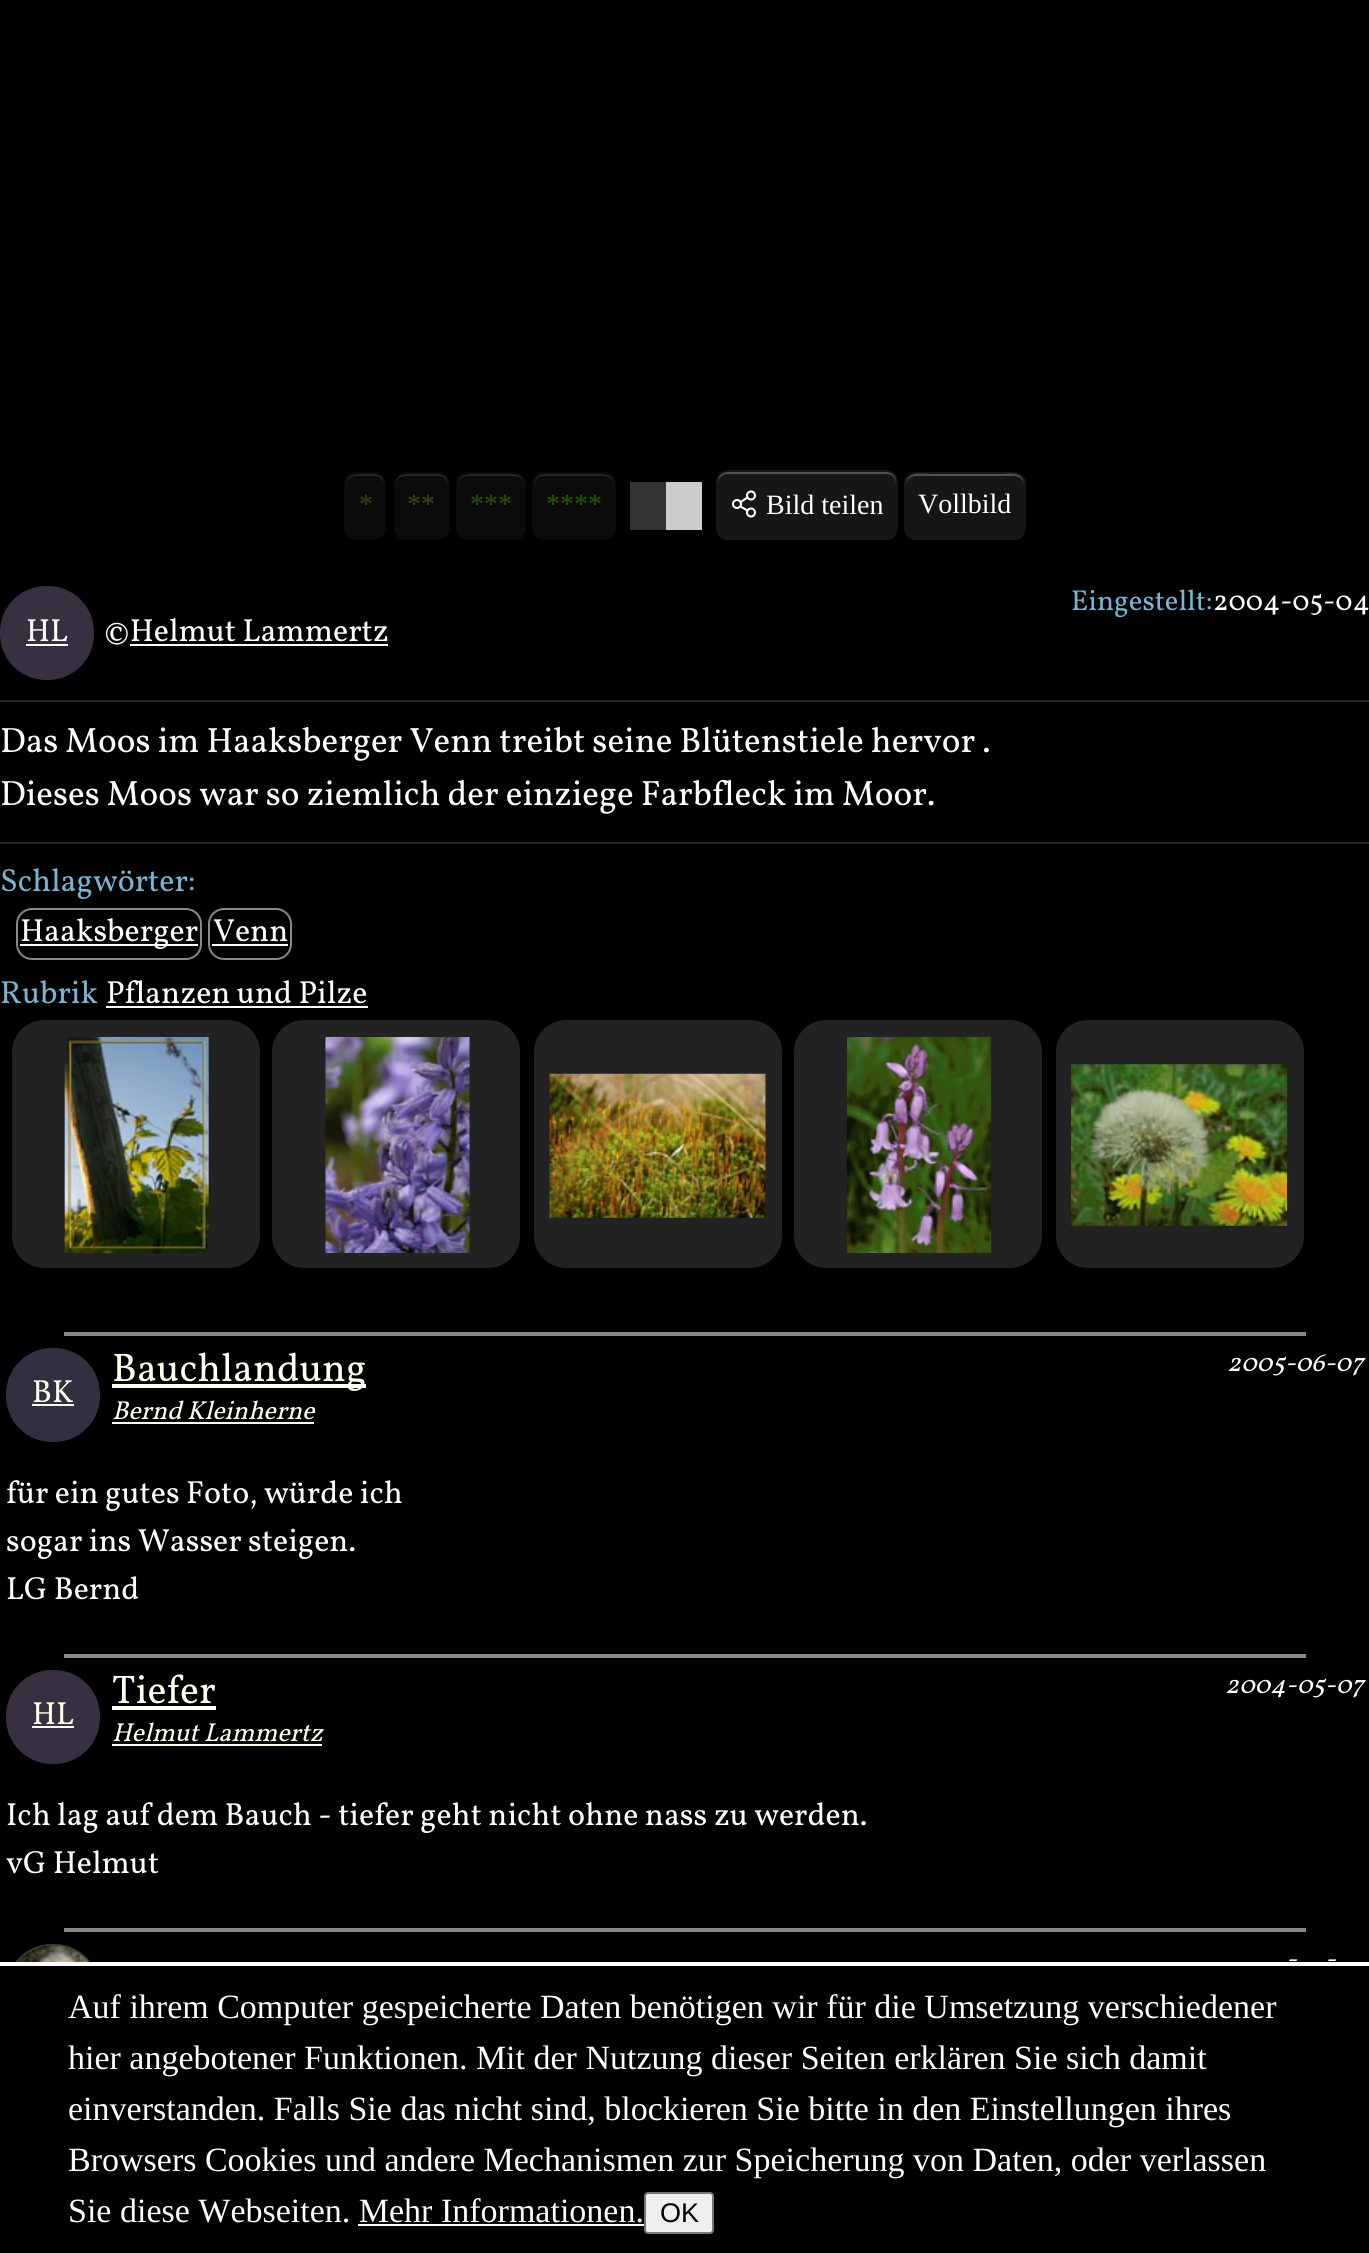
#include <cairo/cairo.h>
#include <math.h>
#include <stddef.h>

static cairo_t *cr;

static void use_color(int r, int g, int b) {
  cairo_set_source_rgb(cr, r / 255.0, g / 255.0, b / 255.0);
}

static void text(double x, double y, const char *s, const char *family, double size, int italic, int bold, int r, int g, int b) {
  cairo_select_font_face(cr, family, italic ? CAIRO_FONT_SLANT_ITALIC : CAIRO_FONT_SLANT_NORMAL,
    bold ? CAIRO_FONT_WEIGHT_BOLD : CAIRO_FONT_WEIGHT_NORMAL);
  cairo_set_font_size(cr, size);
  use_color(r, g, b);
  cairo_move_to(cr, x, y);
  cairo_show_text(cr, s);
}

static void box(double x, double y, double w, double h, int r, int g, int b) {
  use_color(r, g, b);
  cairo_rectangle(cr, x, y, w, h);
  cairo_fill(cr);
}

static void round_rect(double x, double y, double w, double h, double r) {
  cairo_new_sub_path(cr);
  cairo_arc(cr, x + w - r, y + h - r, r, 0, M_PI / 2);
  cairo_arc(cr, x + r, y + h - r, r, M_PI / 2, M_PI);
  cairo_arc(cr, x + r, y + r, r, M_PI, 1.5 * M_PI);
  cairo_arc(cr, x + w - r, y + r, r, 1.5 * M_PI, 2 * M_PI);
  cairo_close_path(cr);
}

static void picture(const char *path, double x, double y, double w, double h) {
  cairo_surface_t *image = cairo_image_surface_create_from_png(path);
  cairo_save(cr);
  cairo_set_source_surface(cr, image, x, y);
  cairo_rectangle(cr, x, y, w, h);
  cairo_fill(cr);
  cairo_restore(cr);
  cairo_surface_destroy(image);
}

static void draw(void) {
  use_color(0, 0, 0);
  cairo_paint(cr);
  use_color(11, 11, 11);
  round_rect(344, 472, 42, 68, 12);
  cairo_fill(cr);
  use_color(40, 40, 40);
  cairo_new_path(cr);
  cairo_move_to(cr, 356, 476);
  cairo_line_to(cr, 374, 476);
  cairo_curve_to(cr, 380, 476, 384, 480, 384, 486);
  cairo_curve_to(cr, 384, 473, 375, 474, 365, 474);
  cairo_curve_to(cr, 355, 474, 346, 473, 346, 486);
  cairo_curve_to(cr, 346, 480, 350, 476, 356, 476);
  cairo_close_path(cr);
  cairo_fill(cr);
  use_color(11, 11, 11);
  round_rect(394, 472, 56, 68, 12);
  cairo_fill(cr);
  use_color(40, 40, 40);
  cairo_new_path(cr);
  cairo_move_to(cr, 406, 476);
  cairo_line_to(cr, 438, 476);
  cairo_curve_to(cr, 444, 476, 448, 480, 448, 486);
  cairo_curve_to(cr, 448, 475, 442, 474, 433, 474);
  cairo_line_to(cr, 411, 474);
  cairo_curve_to(cr, 402, 474, 396, 475, 396, 486);
  cairo_curve_to(cr, 396, 480, 400, 476, 406, 476);
  cairo_close_path(cr);
  cairo_fill(cr);
  use_color(11, 11, 11);
  round_rect(456, 472, 70, 68, 12);
  cairo_fill(cr);
  use_color(40, 40, 40);
  cairo_new_path(cr);
  cairo_move_to(cr, 468, 476);
  cairo_line_to(cr, 514, 476);
  cairo_curve_to(cr, 520, 476, 524, 480, 524, 486);
  cairo_curve_to(cr, 524, 474, 516, 474, 506, 474);
  cairo_line_to(cr, 476, 474);
  cairo_curve_to(cr, 466, 474, 458, 474, 458, 486);
  cairo_curve_to(cr, 458, 480, 462, 476, 468, 476);
  cairo_close_path(cr);
  cairo_fill(cr);
  use_color(11, 11, 11);
  round_rect(532, 472, 84, 68, 12);
  cairo_fill(cr);
  use_color(40, 40, 40);
  cairo_new_path(cr);
  cairo_move_to(cr, 544, 476);
  cairo_line_to(cr, 604, 476);
  cairo_curve_to(cr, 610, 476, 614, 480, 614, 486);
  cairo_curve_to(cr, 614, 473, 605, 474, 594, 474);
  cairo_line_to(cr, 554, 474);
  cairo_curve_to(cr, 543, 474, 534, 473, 534, 486);
  cairo_curve_to(cr, 534, 480, 538, 476, 544, 476);
  cairo_close_path(cr);
  cairo_fill(cr);
  box(630, 482, 36, 48, 51, 51, 51);
  box(666, 482, 36, 48, 204, 204, 204);
  use_color(22, 22, 22);
  round_rect(716, 470, 182, 70, 12);
  cairo_fill(cr);
  use_color(80, 80, 80);
  cairo_new_path(cr);
  cairo_move_to(cr, 728, 474);
  cairo_line_to(cr, 886, 474);
  cairo_curve_to(cr, 892, 474, 896, 478, 896, 484);
  cairo_line_to(cr, 896, 482);
  cairo_curve_to(cr, 896, 476, 892, 472, 886, 472);
  cairo_line_to(cr, 728, 472);
  cairo_curve_to(cr, 722, 472, 718, 476, 718, 482);
  cairo_line_to(cr, 718, 484);
  cairo_curve_to(cr, 718, 478, 722, 474, 728, 474);
  cairo_close_path(cr);
  cairo_fill(cr);
  round_rect(717, 471, 180, 68, 11);
  cairo_set_source_rgba(cr, 0.106, 0.122, 0.137, 0.15);
  cairo_stroke(cr);
  picture("img_01.png", 732, 490, 25, 28);
  use_color(22, 22, 22);
  round_rect(904, 472, 122, 68, 12);
  cairo_fill(cr);
  use_color(80, 80, 80);
  cairo_new_path(cr);
  cairo_move_to(cr, 916, 476);
  cairo_line_to(cr, 1014, 476);
  cairo_curve_to(cr, 1020, 476, 1024, 480, 1024, 486);
  cairo_curve_to(cr, 1024, 470, 1009, 474, 998, 474);
  cairo_line_to(cr, 932, 474);
  cairo_curve_to(cr, 921, 474, 906, 470, 906, 486);
  cairo_curve_to(cr, 906, 480, 910, 476, 916, 476);
  cairo_close_path(cr);
  cairo_fill(cr);
  round_rect(905, 473, 120, 66, 11);
  cairo_set_source_rgba(cr, 0.106, 0.122, 0.137, 0.15);
  cairo_stroke(cr);
  use_color(56, 48, 64);
  round_rect(0, 586, 94, 94, 46);
  cairo_fill(cr);
  box(26, 644, 42, 2, 255, 255, 255);
  box(130, 644, 258, 2, 255, 255, 255);
  box(0, 700, 1369, 2, 34, 34, 34);
  box(0, 842, 1369, 2, 34, 34, 34);
  round_rect(17, 909, 184, 50, 15);
  use_color(136, 136, 136);
  cairo_stroke(cr);
  box(20, 944, 178, 2, 255, 255, 255);
  round_rect(209, 909, 82, 50, 15);
  use_color(136, 136, 136);
  cairo_stroke(cr);
  box(212, 944, 76, 2, 255, 255, 255);
  box(106, 1006, 262, 2, 255, 255, 255);
  use_color(34, 34, 34);
  round_rect(12, 1020, 248, 248, 32);
  cairo_fill(cr);
  picture("img_02.png", 64, 1037, 145, 216);
  round_rect(272, 1020, 248, 248, 32);
  cairo_fill(cr);
  picture("img_03.png", 325, 1037, 145, 216);
  round_rect(534, 1020, 248, 248, 32);
  cairo_fill(cr);
  picture("img_04.png", 549, 1073, 217, 145);
  round_rect(794, 1020, 248, 248, 32);
  cairo_fill(cr);
  picture("img_05.png", 847, 1037, 145, 216);
  round_rect(1056, 1020, 248, 248, 32);
  cairo_fill(cr);
  picture("img_06.png", 1071, 1064, 217, 162);
  box(64, 1332, 1242, 4, 136, 136, 136);
  box(112, 1384, 254, 4, 255, 255, 238);
  use_color(48, 48, 64);
  round_rect(6, 1348, 94, 94, 46);
  cairo_fill(cr);
  box(32, 1404, 42, 2, 255, 255, 238);
  box(112, 1422, 202, 2, 255, 255, 238);
  box(64, 1654, 1242, 4, 136, 136, 136);
  box(112, 1706, 104, 4, 255, 255, 238);
  use_color(56, 48, 64);
  round_rect(6, 1670, 94, 94, 46);
  cairo_fill(cr);
  box(32, 1726, 42, 2, 255, 255, 238);
  box(112, 1744, 210, 2, 255, 255, 238);
  box(64, 1928, 1242, 4, 136, 136, 136);
  use_color(48, 64, 56);
  round_rect(6, 1944, 94, 94, 46);
  cairo_fill(cr);
  picture("img_07.png", 17, 1946, 72, 16);
  box(6, 1966, 94, 72, 0, 0, 0);
  box(0, 1962, 1369, 4, 255, 255, 255);
  use_color(239, 239, 239);
  round_rect(645, 2193, 68, 40, 3);
  cairo_fill_preserve(cr);
  use_color(118, 118, 118);
  cairo_stroke(cr);
  box(358, 2224, 286, 2, 255, 255, 255);
  text(359, 513, "*", "Liberation Serif", 28, 0, 0, 64, 64, 0);
  text(407, 513, "**", "Liberation Serif", 28, 0, 0, 53, 75, 0);
  text(470, 513, "***", "Liberation Serif", 28, 0, 0, 43, 85, 0);
  text(546, 513, "****", "Liberation Serif", 28, 0, 0, 32, 96, 0);
  text(766, 514, "Bild teilen", "Liberation Serif", 28, 0, 0, 255, 255, 255);
  text(918, 513, "Vollbild", "Liberation Serif", 28, 0, 0, 255, 255, 255);
  text(1071, 610, "Eingestellt:", "Vollkorn", 28.75, 0, 0, 118, 179, 212);
  text(1213, 610, "2004-05-04", "Vollkorn", 28.75, 0, 0, 255, 255, 255);
  text(26, 641, "HL", "Vollkorn", 32, 0, 0, 255, 255, 255);
  text(104, 641, "©Helmut Lammertz", "Vollkorn", 32, 0, 0, 255, 255, 255);
  text(0, 752, "Das Moos im Haaksberger Venn treibt seine Blütenstiele hervor .", "Vollkorn", 35.2, 0, 0, 255, 255, 255);
  text(0, 805, "Dieses Moos war so ziemlich der einziege Farbfleck im Moor.", "Vollkorn", 35.2, 0, 0, 255, 255, 255);
  text(0, 891, "Schlagwörter:", "Vollkorn", 32, 0, 0, 118, 179, 212);
  text(20, 941, "Haaksberger", "Vollkorn", 32, 0, 0, 255, 255, 255);
  text(213, 941, "Venn", "Vollkorn", 32, 0, 0, 255, 255, 255);
  text(0, 1003, "Rubrik", "Vollkorn", 32, 0, 0, 118, 179, 212);
  text(106, 1003, "Pflanzen und Pilze", "Vollkorn", 32, 0, 0, 255, 255, 255);
  text(112, 1381, "Bauchlandung", "Vollkorn", 40, 0, 0, 255, 255, 238);
  text(32, 1402, "BK", "Vollkorn", 32, 0, 0, 255, 255, 238);
  text(1227, 1371, "2005-06-07", "Vollkorn", 26, 1, 0, 255, 255, 255);
  text(112, 1419, "Bernd Kleinherne", "Vollkorn", 26, 1, 0, 255, 255, 238);
  text(6, 1503, "für ein gutes Foto, würde ich", "Vollkorn", 32, 0, 0, 255, 255, 255);
  text(6, 1551, "sogar ins Wasser steigen.", "Vollkorn", 32, 0, 0, 255, 255, 255);
  text(6, 1599, "LG Bernd", "Vollkorn", 32, 0, 0, 255, 255, 255);
  text(112, 1703, "Tiefer", "Vollkorn", 40, 0, 0, 255, 255, 238);
  text(32, 1724, "HL", "Vollkorn", 32, 0, 0, 255, 255, 238);
  text(1225, 1693, "2004-05-07", "Vollkorn", 26, 1, 0, 255, 255, 255);
  text(112, 1741, "Helmut Lammertz", "Vollkorn", 26, 1, 0, 255, 255, 238);
  text(6, 1825, "Ich lag auf dem Bauch - tiefer geht nicht ohne nass zu werden.", "Vollkorn", 32, 0, 0, 255, 255, 255);
  text(6, 1873, "vG Helmut", "Vollkorn", 32, 0, 0, 255, 255, 255);
  text(1286, 1967, "-", "Vollkorn", 26, 1, 0, 255, 255, 255);
  text(1325, 1967, "-", "Vollkorn", 26, 1, 0, 255, 255, 255);
  text(68, 2018, "Auf ihrem Computer gespeicherte Daten benötigen wir für die Umsetzung verschiedener", "Liberation Serif", 34, 0, 0, 255, 255, 255);
  text(68, 2069, "hier angebotener Funktionen. Mit der Nutzung dieser Seiten erklären Sie sich damit", "Liberation Serif", 34, 0, 0, 255, 255, 255);
  text(68, 2120, "einverstanden. Falls Sie das nicht sind, blockieren Sie bitte in den Einstellungen ihres", "Liberation Serif", 34, 0, 0, 255, 255, 255);
  text(68, 2171, "Browsers Cookies und andere Mechanismen zur Speicherung von Daten, oder verlassen", "Liberation Serif", 34, 0, 0, 255, 255, 255);
  text(68, 2222, "Sie diese Webseiten. Mehr Informationen.", "Liberation Serif", 34, 0, 0, 255, 255, 255);
  text(660, 2222, "OK", "Liberation Sans", 27, 0, 0, 0, 0, 0);
}

int main(void) {
  cairo_surface_t *surface = cairo_image_surface_create(CAIRO_FORMAT_RGB24, 1369, 2253);
  cr = cairo_create(surface);
  cairo_font_options_t *options = cairo_font_options_create();
  cairo_font_options_set_hint_metrics(options, CAIRO_HINT_METRICS_OFF);
  cairo_font_options_set_hint_style(options, CAIRO_HINT_STYLE_NONE);
  cairo_set_font_options(cr, options);
  cairo_set_miter_limit(cr, 4);
  draw();
  cairo_surface_write_to_png(surface, "out.png");
  cairo_font_options_destroy(options);
  cairo_destroy(cr);
  cairo_surface_destroy(surface);
  return 0;
}
